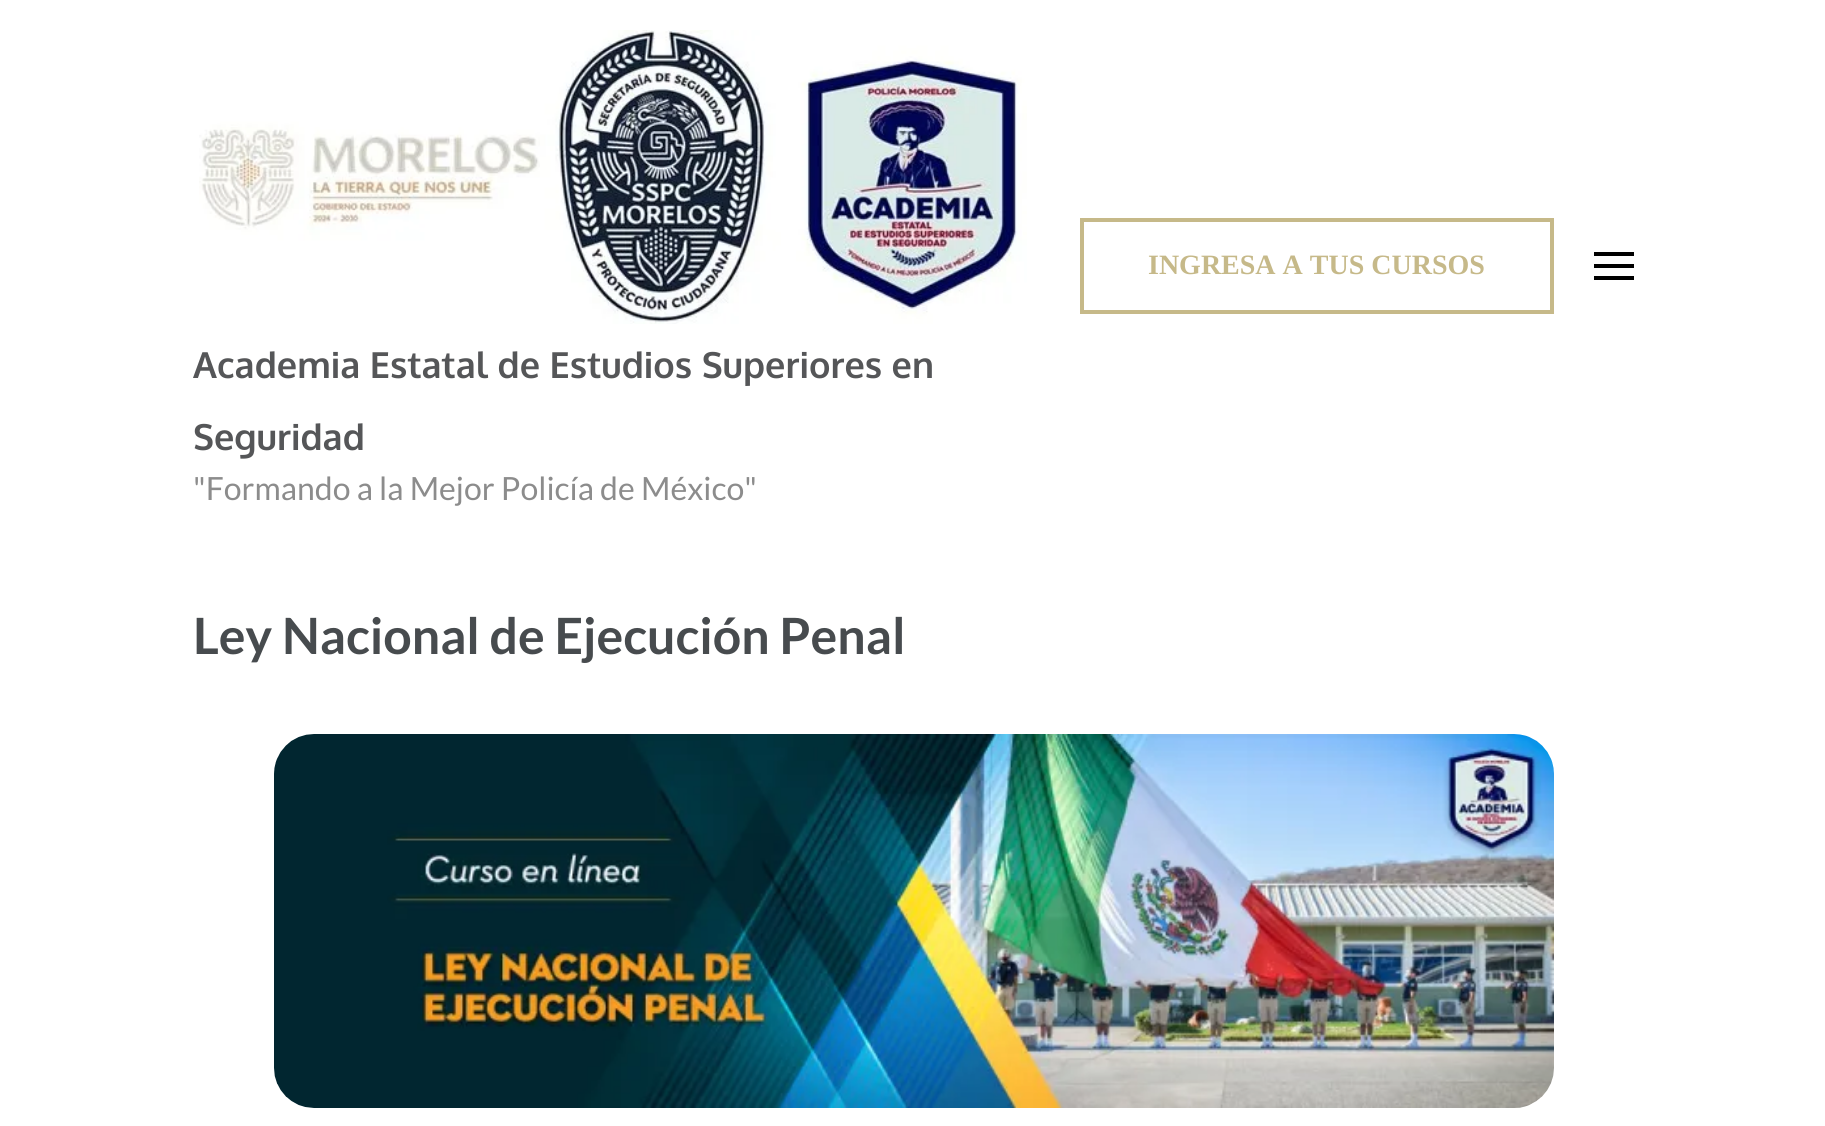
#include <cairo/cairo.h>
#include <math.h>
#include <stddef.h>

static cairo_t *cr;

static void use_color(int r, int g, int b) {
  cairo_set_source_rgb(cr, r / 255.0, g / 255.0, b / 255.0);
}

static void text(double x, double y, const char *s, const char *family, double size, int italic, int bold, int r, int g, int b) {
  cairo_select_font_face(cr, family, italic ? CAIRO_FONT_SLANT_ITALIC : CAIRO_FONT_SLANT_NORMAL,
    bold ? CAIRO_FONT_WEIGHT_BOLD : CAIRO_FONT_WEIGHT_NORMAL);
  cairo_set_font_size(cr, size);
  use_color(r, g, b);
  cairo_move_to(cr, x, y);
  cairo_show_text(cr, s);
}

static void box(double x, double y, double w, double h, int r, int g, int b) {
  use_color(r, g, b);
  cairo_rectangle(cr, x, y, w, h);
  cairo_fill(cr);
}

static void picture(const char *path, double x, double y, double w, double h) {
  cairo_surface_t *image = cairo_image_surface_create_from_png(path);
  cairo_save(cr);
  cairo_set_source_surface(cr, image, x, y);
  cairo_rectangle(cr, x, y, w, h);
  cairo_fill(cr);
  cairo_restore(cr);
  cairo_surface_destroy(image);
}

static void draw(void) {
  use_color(255, 255, 255);
  cairo_paint(cr);
  cairo_rectangle(cr, 1082, 220, 470, 92);
  use_color(198, 185, 137);
  cairo_set_line_width(cr, 4);
  cairo_stroke(cr);
  box(1594, 252, 40, 4, 0, 0, 0);
  box(1594, 264, 40, 4, 0, 0, 0);
  box(1594, 276, 40, 4, 0, 0, 0);
  picture("img_01.png", 199, 30, 828, 294);
  picture("img_02.png", 274, 734, 1280, 374);
  text(1148, 274, "INGRESA A TUS CURSOS", "Liberation Serif", 28, 0, 1, 198, 185, 137);
  text(193, 378, "Academia Estatal de Estudios Superiores en", "Oxygen", 36, 0, 1, 85, 86, 88);
  text(193, 450, "Seguridad", "Oxygen", 36, 0, 1, 85, 86, 88);
  text(193, 500, "\"Formando a la Mejor Policía de México\"", "Lato", 32, 0, 0, 140, 140, 140);
  text(193, 654, "Ley Nacional de Ejecución Penal", "Lato", 50, 0, 1, 71, 75, 78);
}

int main(void) {
  cairo_surface_t *surface = cairo_image_surface_create(CAIRO_FORMAT_RGB24, 1825, 1126);
  cr = cairo_create(surface);
  cairo_font_options_t *options = cairo_font_options_create();
  cairo_font_options_set_hint_metrics(options, CAIRO_HINT_METRICS_OFF);
  cairo_font_options_set_hint_style(options, CAIRO_HINT_STYLE_NONE);
  cairo_set_font_options(cr, options);
  cairo_set_miter_limit(cr, 4);
  draw();
  cairo_surface_write_to_png(surface, "out.png");
  cairo_font_options_destroy(options);
  cairo_destroy(cr);
  cairo_surface_destroy(surface);
  return 0;
}
